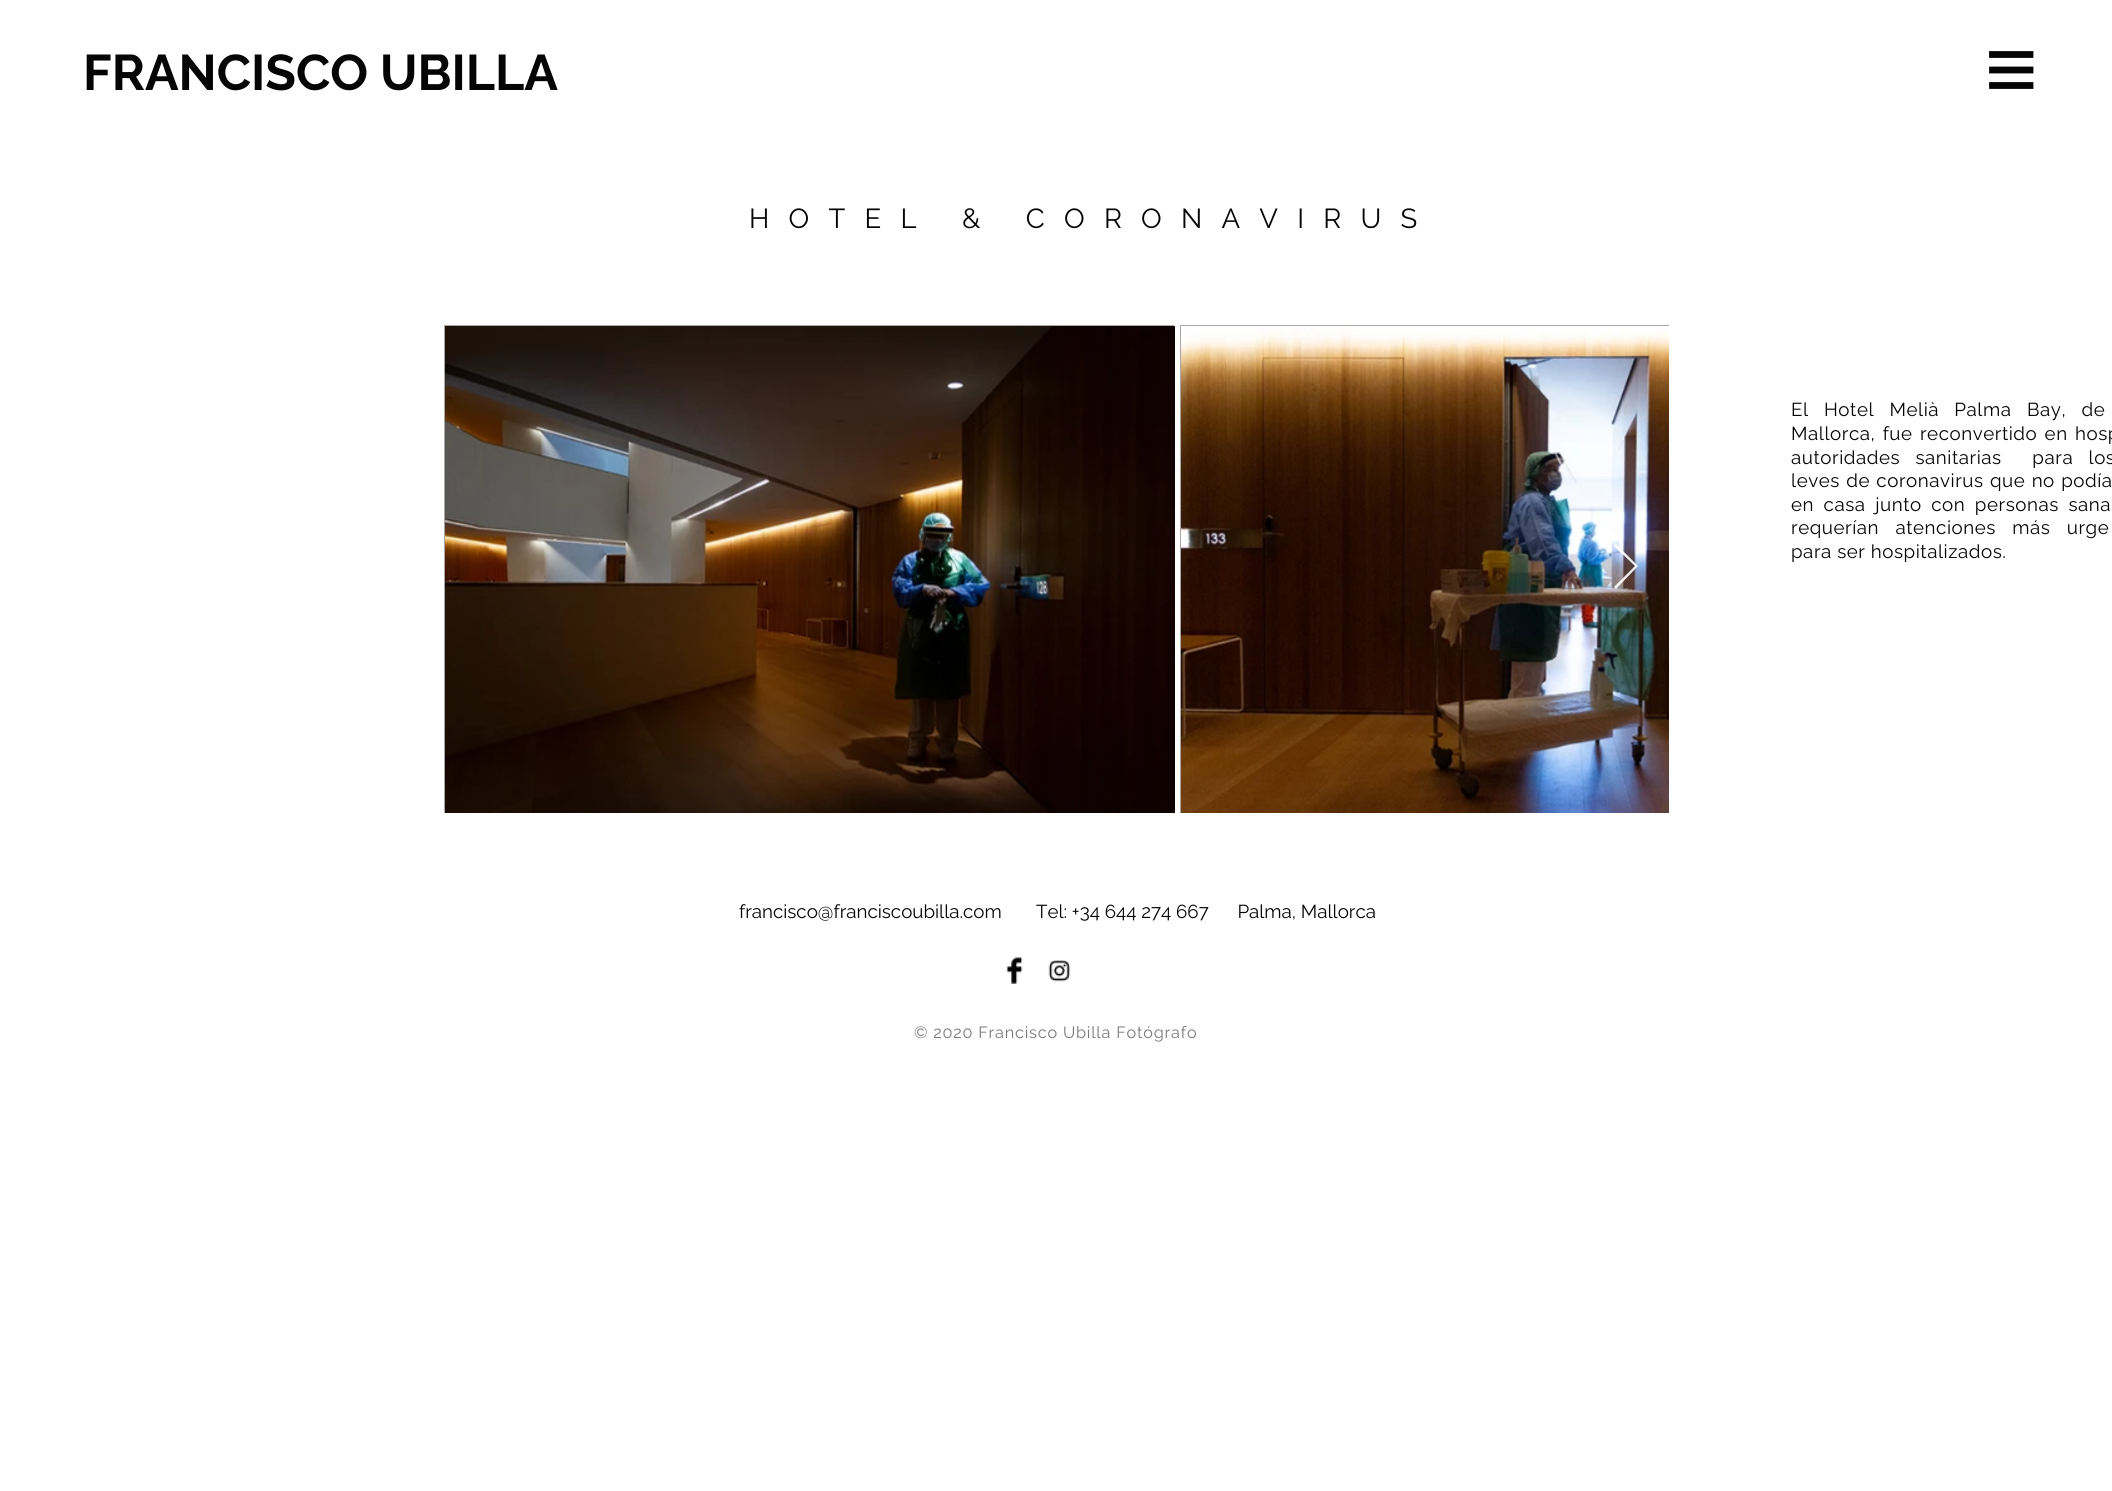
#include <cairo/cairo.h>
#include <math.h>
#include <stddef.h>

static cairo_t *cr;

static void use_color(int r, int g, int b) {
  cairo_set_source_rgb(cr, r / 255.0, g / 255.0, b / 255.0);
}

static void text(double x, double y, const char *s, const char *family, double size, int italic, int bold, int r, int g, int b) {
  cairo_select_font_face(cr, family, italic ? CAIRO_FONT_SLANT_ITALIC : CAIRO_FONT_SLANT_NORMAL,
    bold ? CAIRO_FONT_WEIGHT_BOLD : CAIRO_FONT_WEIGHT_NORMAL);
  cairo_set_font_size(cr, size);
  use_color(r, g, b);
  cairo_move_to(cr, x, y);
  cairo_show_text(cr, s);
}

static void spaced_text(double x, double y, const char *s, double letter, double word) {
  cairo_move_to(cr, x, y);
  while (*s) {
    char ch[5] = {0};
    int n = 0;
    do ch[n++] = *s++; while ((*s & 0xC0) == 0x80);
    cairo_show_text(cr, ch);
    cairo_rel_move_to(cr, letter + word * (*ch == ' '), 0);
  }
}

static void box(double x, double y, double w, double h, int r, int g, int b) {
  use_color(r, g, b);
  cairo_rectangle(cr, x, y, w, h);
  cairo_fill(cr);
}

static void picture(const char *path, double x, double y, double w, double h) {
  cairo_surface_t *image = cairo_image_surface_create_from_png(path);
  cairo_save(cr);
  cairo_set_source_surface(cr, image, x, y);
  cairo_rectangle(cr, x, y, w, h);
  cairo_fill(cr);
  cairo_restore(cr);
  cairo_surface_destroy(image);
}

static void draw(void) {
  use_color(255, 255, 255);
  cairo_paint(cr);
  cairo_new_path(cr);
  cairo_move_to(cr, 2031.5, 53);
  cairo_line_to(cr, 2031.5, 56);
  cairo_line_to(cr, 1991, 56);
  cairo_line_to(cr, 1991, 53);
  cairo_close_path(cr);
  cairo_move_to(cr, 2031.5, 68.5);
  cairo_line_to(cr, 2031.5, 71.5);
  cairo_line_to(cr, 1991, 71.5);
  cairo_line_to(cr, 1991, 68.5);
  cairo_close_path(cr);
  cairo_move_to(cr, 2031.5, 84);
  cairo_line_to(cr, 2031.5, 87);
  cairo_line_to(cr, 1991, 87);
  cairo_line_to(cr, 1991, 84);
  cairo_close_path(cr);
  use_color(5, 5, 5);
  cairo_set_line_width(cr, 3.8);
  cairo_stroke(cr);
  box(444, 325, 730, 488, 167, 167, 167);
  picture("img_01.png", 445, 326, 730, 487);
  box(1180, 325, 489, 488, 167, 167, 167);
  picture("img_02.png", 1181, 326, 488, 487);
  cairo_set_source_rgba(cr, 1, 1, 1, 0.9);
  cairo_new_path(cr);
  cairo_move_to(cr, 1614, 546);
  cairo_line_to(cr, 1616, 544);
  cairo_line_to(cr, 1638, 566);
  cairo_line_to(cr, 1616, 589);
  cairo_line_to(cr, 1614, 587);
  cairo_line_to(cr, 1635, 566);
  cairo_close_path(cr);
  cairo_fill(cr);
  picture("img_03.png", 1006, 957, 17, 27);
  picture("img_04.png", 1048, 960, 23, 22);
  text(83, 90, "FRANCISCO UBILLA", "Raleway", 50, 0, 1, 5, 5, 5);
  cairo_select_font_face(cr, "Raleway", CAIRO_FONT_SLANT_NORMAL, CAIRO_FONT_WEIGHT_NORMAL);
  cairo_set_font_size(cr, 27.5);
  spaced_text(749, 228, "HOTEL & CORONAVIRUS", 19.25, 0);
  cairo_set_font_size(cr, 18.75);
  spaced_text(1791, 416, "El Hotel Melià Palma Bay, de", 0.55, 10);
  spaced_text(1791, 440, "Mallorca, fue reconvertido en hosp", 0.55, 2);
  spaced_text(1791, 464, "autoridades sanitarias  para los", 0.55, 10);
  spaced_text(1791, 487, "leves de coronavirus que no podía", 0.55, 1);
  spaced_text(1791, 511, "en casa junto con personas sana", 0.55, 4.25);
  spaced_text(1791, 534, "requerían atenciones más urge", 0.55, 11);
  spaced_text(1791, 558, "para ser hospitalizados.", 0.55, 0);
  text(739, 918, "francisco@franciscoubilla.com", "Raleway", 18.75, 0, 0, 5, 5, 5);
  text(1036, 918, "Tel: +34 644 274 667      Palma, Mallorca", "Raleway", 18.75, 0, 0, 5, 5, 5);
  cairo_set_font_size(cr, 16.25);
  use_color(121, 121, 121);
  spaced_text(914, 1038, "© 2020 Francisco Ubilla Fotógrafo", 0.8, 0);
}

int main(void) {
  cairo_surface_t *surface = cairo_image_surface_create(CAIRO_FORMAT_RGB24, 2112, 1491);
  cr = cairo_create(surface);
  cairo_font_options_t *options = cairo_font_options_create();
  cairo_font_options_set_hint_metrics(options, CAIRO_HINT_METRICS_OFF);
  cairo_font_options_set_hint_style(options, CAIRO_HINT_STYLE_NONE);
  cairo_set_font_options(cr, options);
  cairo_set_miter_limit(cr, 4);
  draw();
  cairo_surface_write_to_png(surface, "out.png");
  cairo_font_options_destroy(options);
  cairo_destroy(cr);
  cairo_surface_destroy(surface);
  return 0;
}
